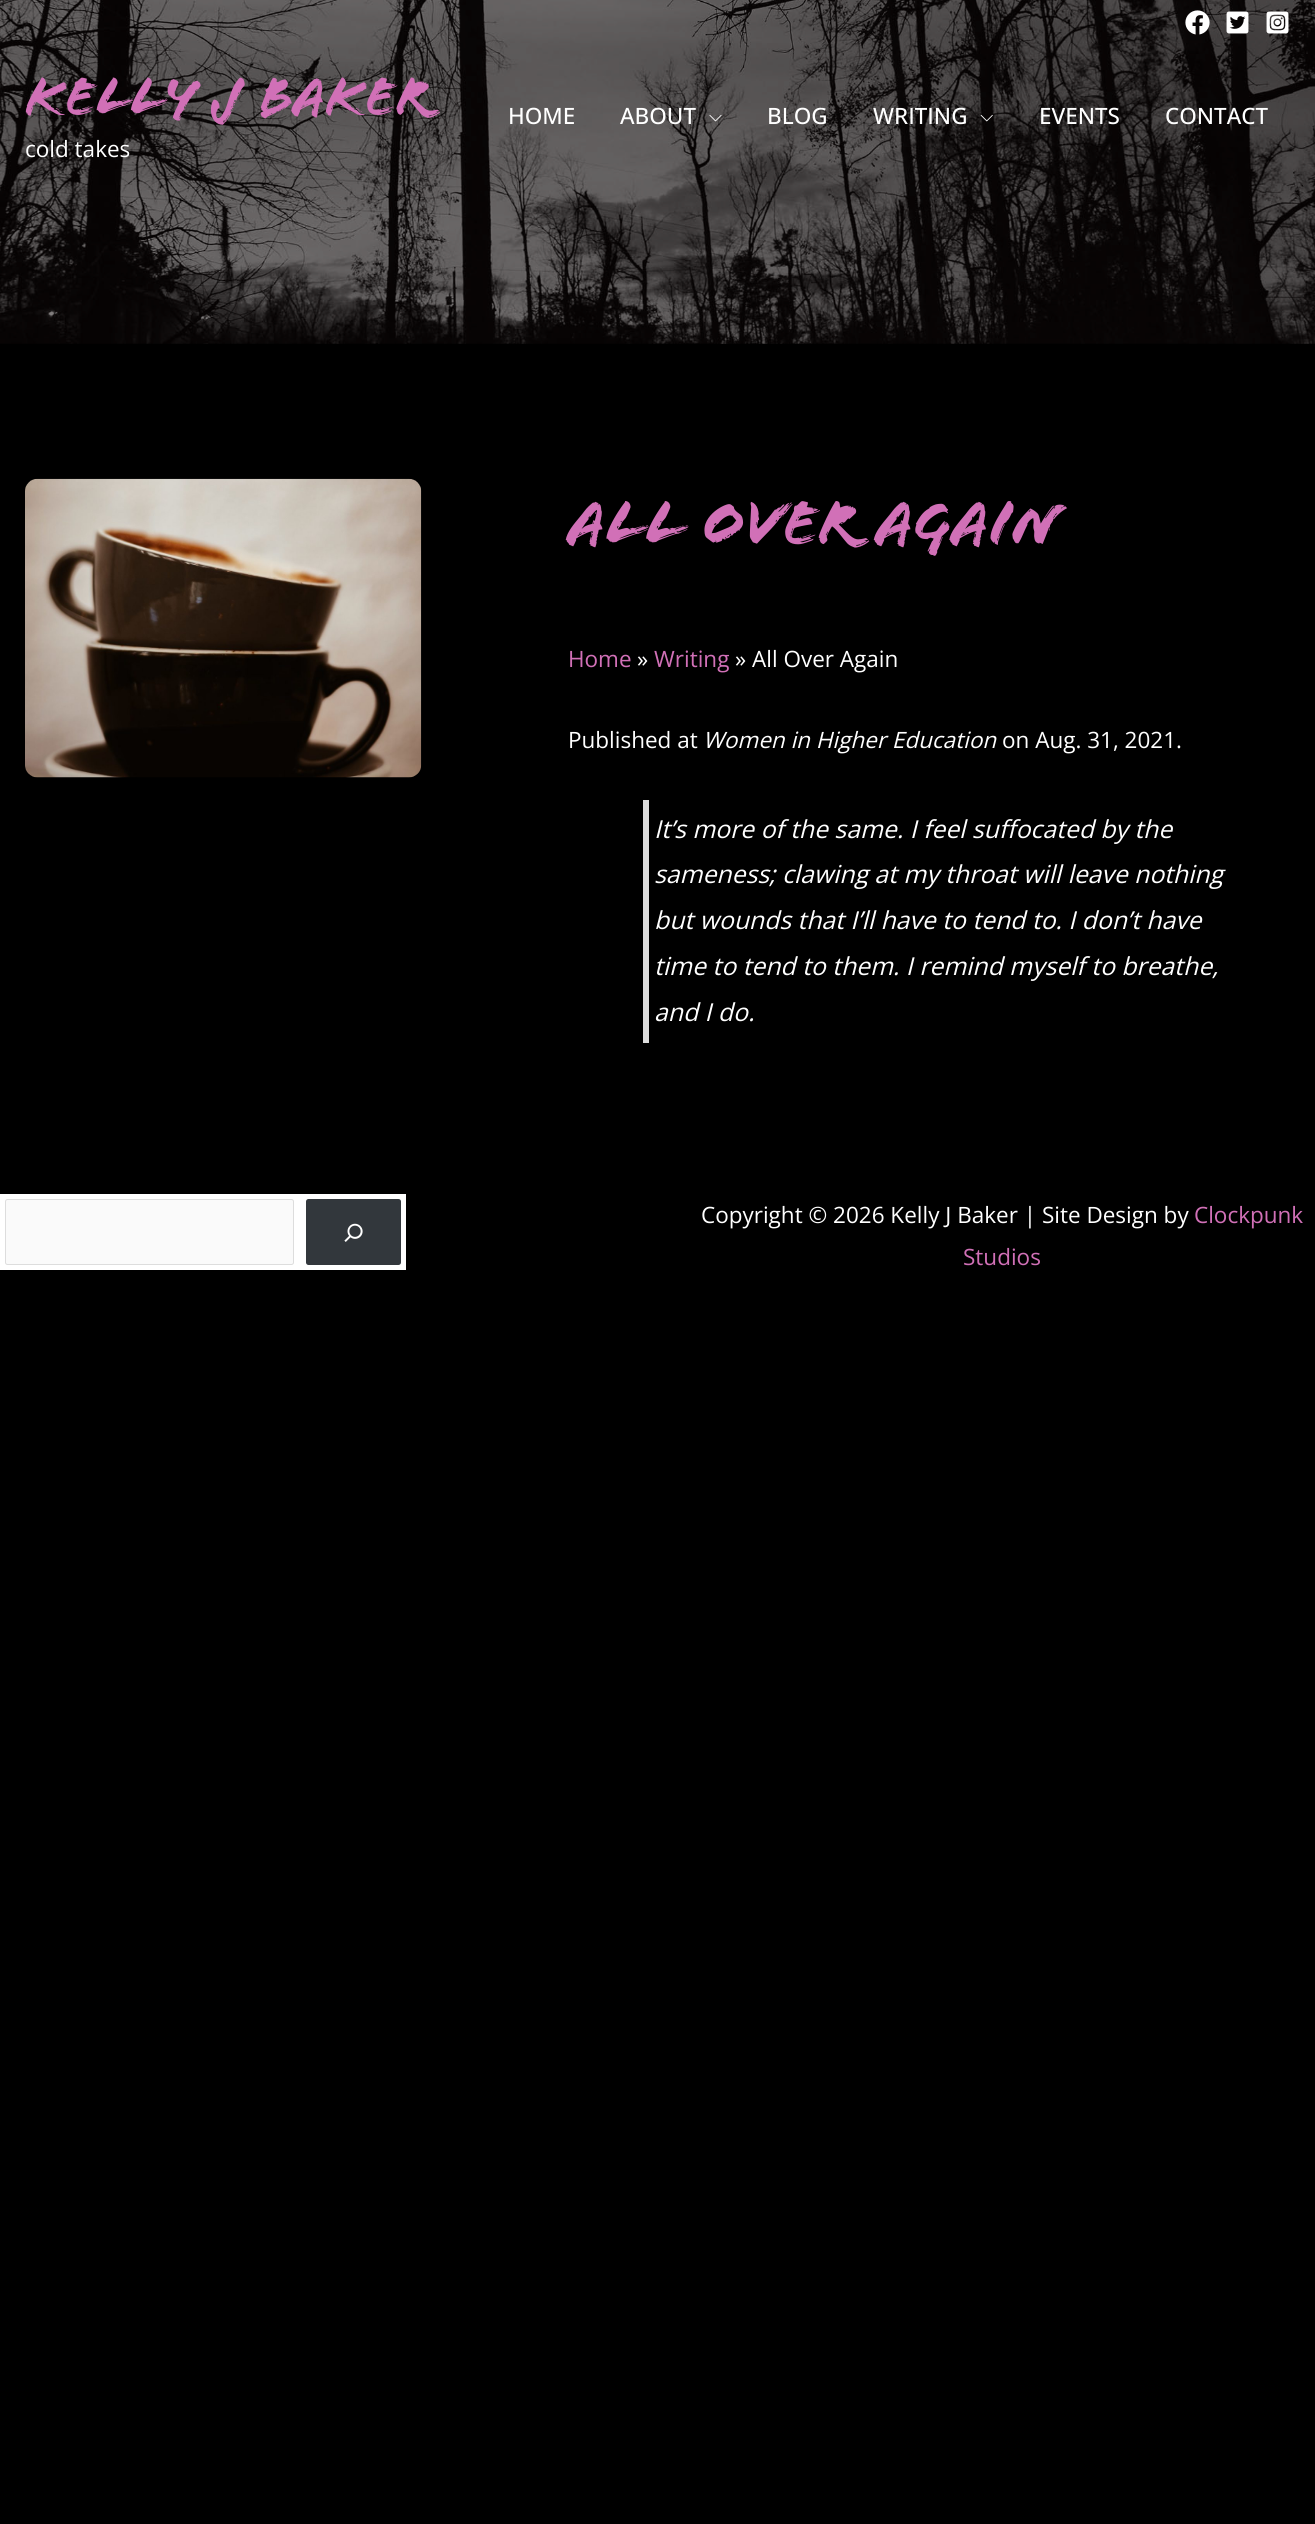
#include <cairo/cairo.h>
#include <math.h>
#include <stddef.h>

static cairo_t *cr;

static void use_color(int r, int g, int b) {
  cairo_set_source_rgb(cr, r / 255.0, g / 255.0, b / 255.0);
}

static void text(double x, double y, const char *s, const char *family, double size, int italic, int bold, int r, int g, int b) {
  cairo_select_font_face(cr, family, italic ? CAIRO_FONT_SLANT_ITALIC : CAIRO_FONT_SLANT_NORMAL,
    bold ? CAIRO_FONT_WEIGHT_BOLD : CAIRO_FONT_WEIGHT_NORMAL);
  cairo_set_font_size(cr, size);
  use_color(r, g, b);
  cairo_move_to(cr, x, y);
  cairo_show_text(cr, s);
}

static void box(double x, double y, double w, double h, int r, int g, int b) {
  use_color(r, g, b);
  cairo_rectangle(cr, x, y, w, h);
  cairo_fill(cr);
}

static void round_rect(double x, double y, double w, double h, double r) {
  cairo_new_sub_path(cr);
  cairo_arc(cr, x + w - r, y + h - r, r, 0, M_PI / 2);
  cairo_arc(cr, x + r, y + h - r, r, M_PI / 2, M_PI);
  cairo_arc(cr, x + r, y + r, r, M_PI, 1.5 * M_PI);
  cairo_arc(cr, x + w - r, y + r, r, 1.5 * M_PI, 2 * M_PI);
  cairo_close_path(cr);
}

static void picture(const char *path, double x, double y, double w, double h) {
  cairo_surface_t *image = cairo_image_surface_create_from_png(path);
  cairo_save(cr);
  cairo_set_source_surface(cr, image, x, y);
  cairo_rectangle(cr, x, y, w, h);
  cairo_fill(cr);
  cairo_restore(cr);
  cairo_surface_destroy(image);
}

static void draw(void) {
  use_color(0, 0, 0);
  cairo_paint(cr);
  picture("img_01.png", 0, 0, 1315, 344);
  picture("img_02.png", 1185, 10, 25, 25);
  picture("img_03.png", 1226, 11, 23, 23);
  picture("img_04.png", 1266, 11, 23, 23);
  picture("img_05.png", 709, 114, 13, 8);
  picture("img_06.png", 980, 114, 13, 8);
  picture("img_07.png", 25, 478, 397, 300);
  box(643, 800, 6, 243, 221, 221, 221);
  box(0, 1194, 406, 76, 255, 255, 255);
  use_color(250, 250, 250);
  round_rect(5.5, 1199.5, 288, 65, 2);
  cairo_fill_preserve(cr);
  use_color(221, 221, 221);
  cairo_set_line_width(cr, 1);
  cairo_stroke(cr);
  use_color(50, 55, 60);
  round_rect(306, 1199, 95, 66, 2.5);
  cairo_fill(cr);
  picture("img_08.png", 344, 1223, 19, 19);
  text(25, 113, "Kelly J Baker", "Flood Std", 56.25, 0, 0, 209, 112, 183);
  text(25, 157, "cold takes", "Open Sans", 22.5, 0, 0, 255, 255, 255);
  text(508, 124, "HOME", "Open Sans Medium", 22.5, 0, 0, 255, 255, 255);
  text(620, 124, "ABOUT", "Open Sans Medium", 22.5, 0, 0, 255, 255, 255);
  text(767, 124, "BLOG", "Open Sans Medium", 22.5, 0, 0, 255, 255, 255);
  text(873, 124, "WRITING", "Open Sans Medium", 22.5, 0, 0, 255, 255, 255);
  text(1039, 124, "EVENTS", "Open Sans Medium", 22.5, 0, 0, 255, 255, 255);
  text(1165, 124, "CONTACT", "Open Sans Medium", 22.5, 0, 0, 255, 255, 255);
  text(568, 542, "All Over Again", "Flood Std", 65, 0, 0, 209, 112, 183);
  text(568, 667, "Home", "Open Sans", 22.5, 0, 0, 209, 112, 183);
  text(637, 667, "»", "Open Sans", 22.5, 0, 0, 255, 255, 255);
  text(654, 667, "Writing", "Open Sans", 22.5, 0, 0, 209, 112, 183);
  text(735, 667, "» All Over Again", "Open Sans", 22.5, 0, 0, 255, 255, 255);
  text(568, 748, "Published at", "Open Sans", 22.5, 0, 0, 255, 255, 255);
  text(703, 748, "Women in Higher Education", "Open Sans", 22.5, 1, 0, 255, 255, 255);
  text(1002, 748, "on Aug. 31, 2021.", "Open Sans", 22.5, 0, 0, 255, 255, 255);
  text(654, 838, "It’s more of the same. I feel suffocated by the", "Open Sans", 24.75, 1, 0, 255, 255, 255);
  text(654, 883, "sameness; clawing at my throat will leave nothing", "Open Sans", 24.75, 1, 0, 255, 255, 255);
  text(654, 929, "but wounds that I’ll have to tend to. I don’t have", "Open Sans", 24.75, 1, 0, 255, 255, 255);
  text(654, 975, "time to tend to them. I remind myself to breathe,", "Open Sans", 24.75, 1, 0, 255, 255, 255);
  text(654, 1021, "and I do.", "Open Sans", 24.75, 1, 0, 255, 255, 255);
  text(701, 1223, "Copyright © 2026 Kelly J Baker | Site Design by", "Open Sans", 22.5, 0, 0, 255, 255, 255);
  text(1194, 1223, "Clockpunk", "Open Sans", 22.5, 0, 0, 209, 112, 183);
  text(963, 1265, "Studios", "Open Sans", 22.5, 0, 0, 209, 112, 183);
}

int main(void) {
  cairo_surface_t *surface = cairo_image_surface_create(CAIRO_FORMAT_RGB24, 1315, 2524);
  cr = cairo_create(surface);
  cairo_font_options_t *options = cairo_font_options_create();
  cairo_font_options_set_hint_metrics(options, CAIRO_HINT_METRICS_OFF);
  cairo_font_options_set_hint_style(options, CAIRO_HINT_STYLE_NONE);
  cairo_set_font_options(cr, options);
  cairo_set_miter_limit(cr, 4);
  draw();
  cairo_surface_write_to_png(surface, "out.png");
  cairo_font_options_destroy(options);
  cairo_destroy(cr);
  cairo_surface_destroy(surface);
  return 0;
}
